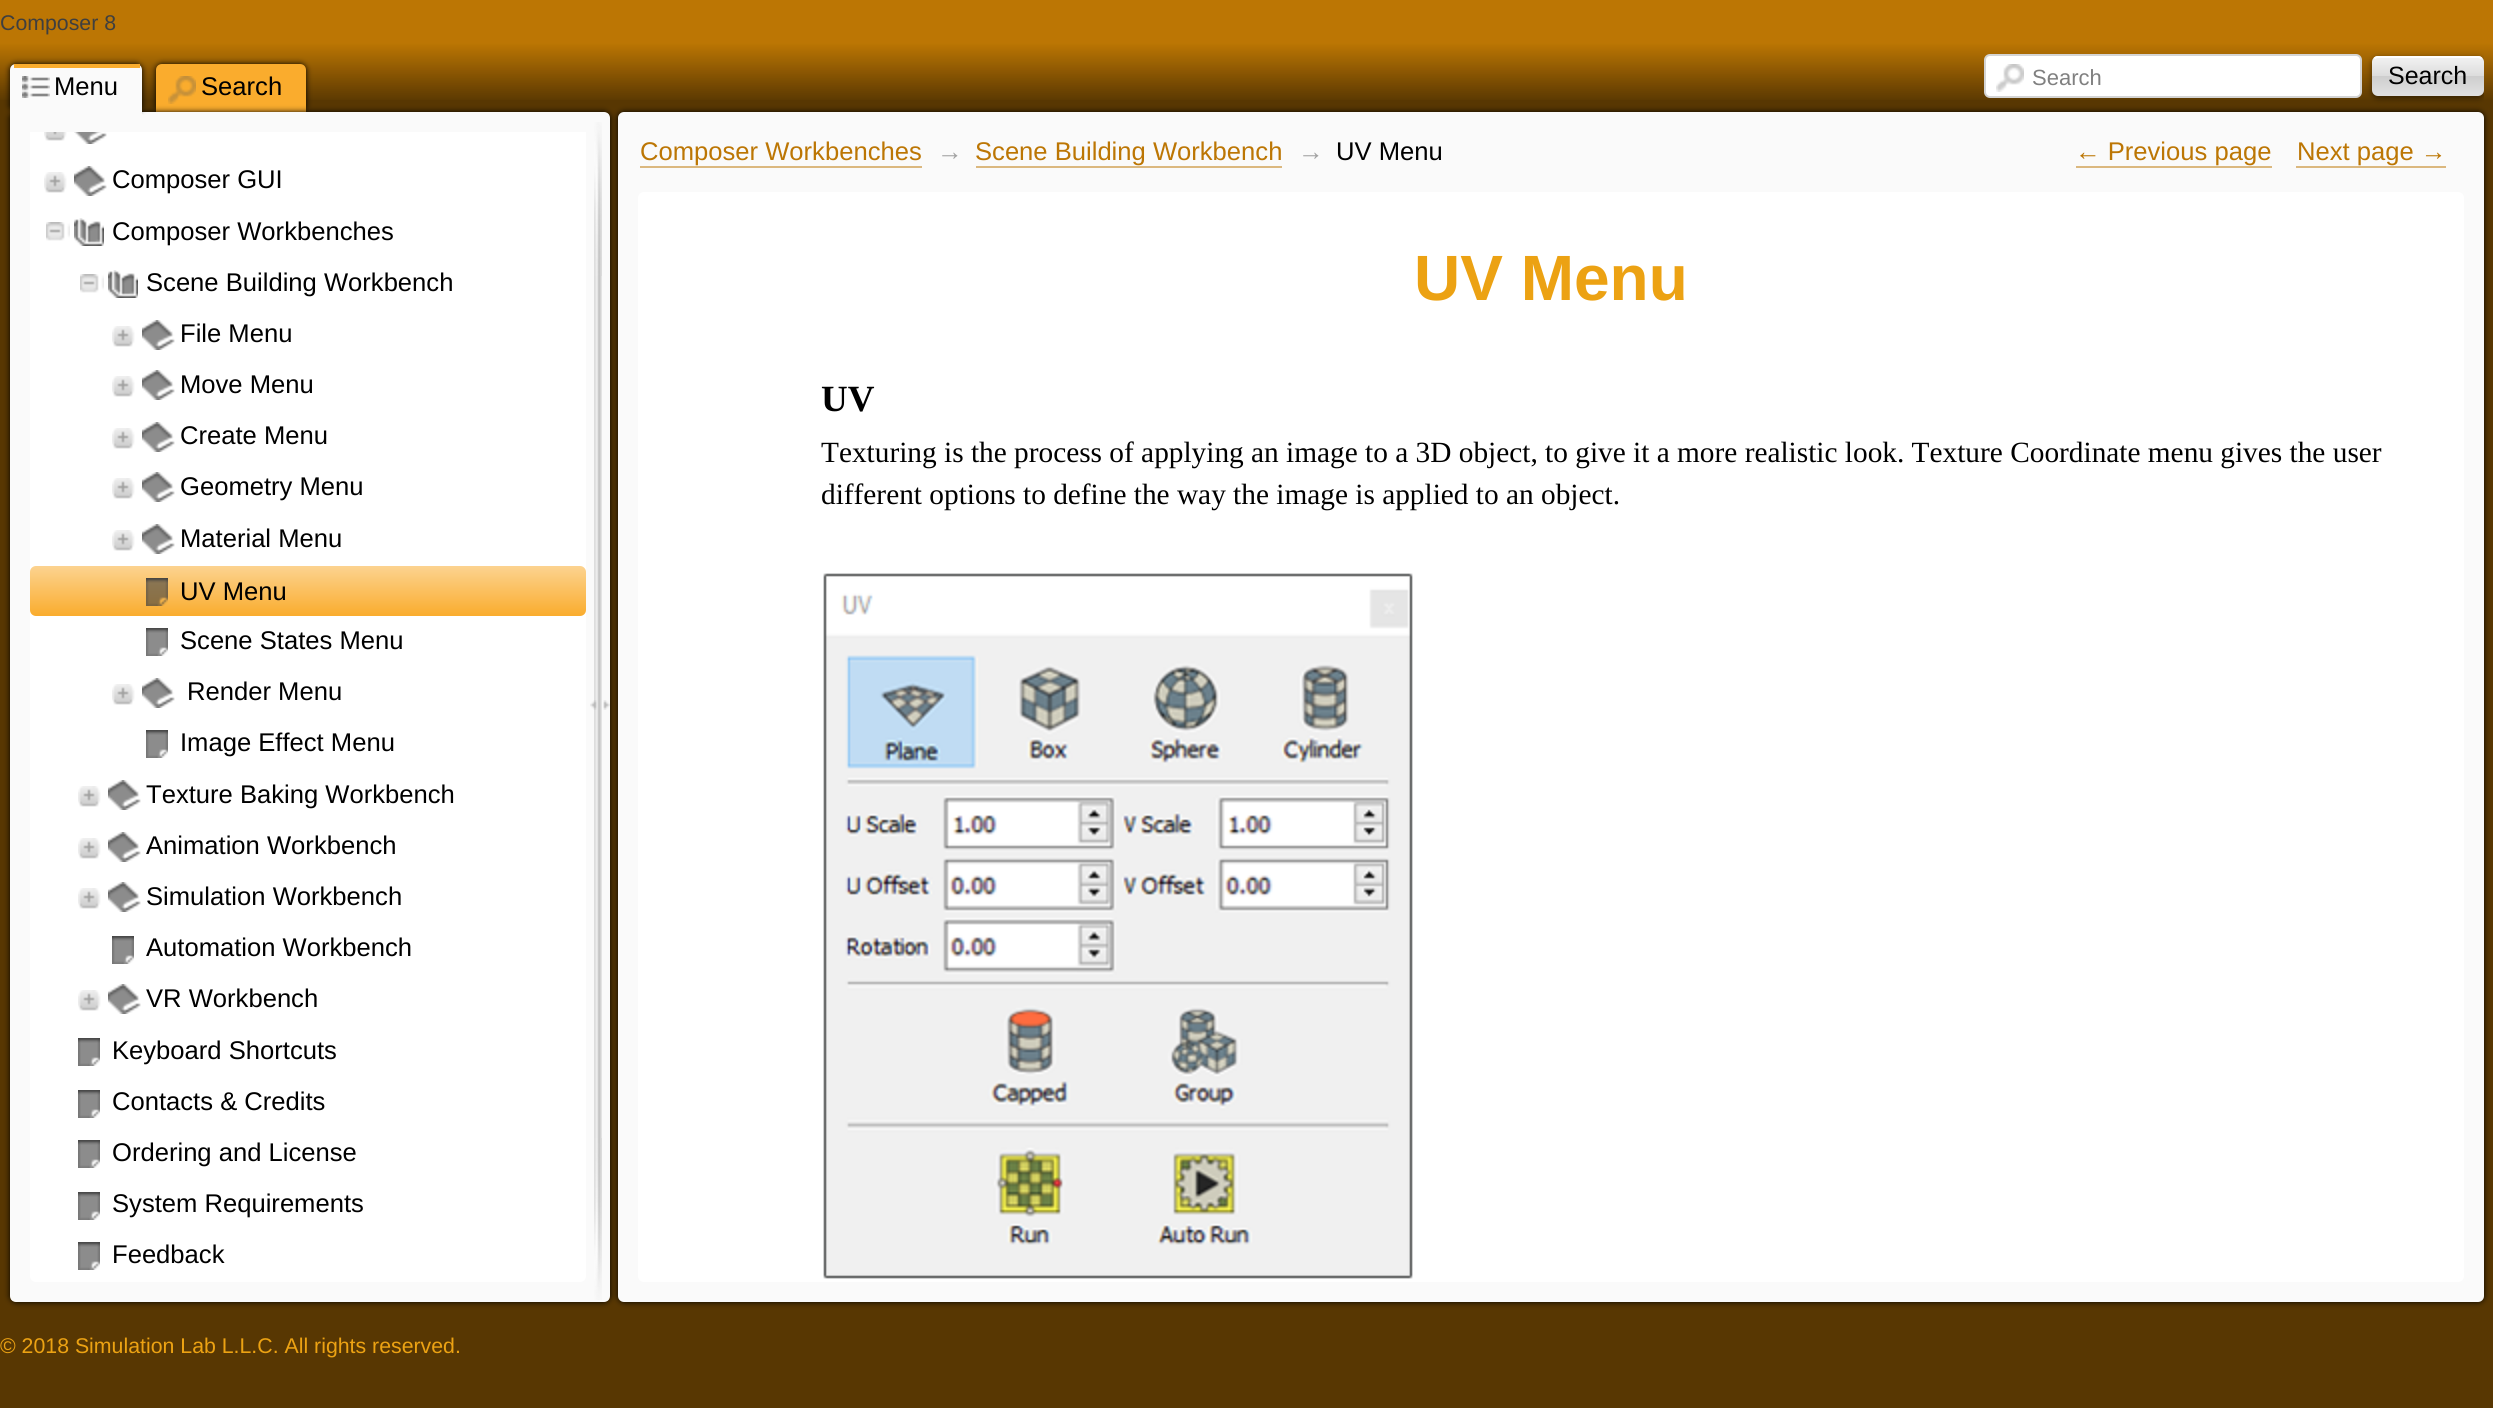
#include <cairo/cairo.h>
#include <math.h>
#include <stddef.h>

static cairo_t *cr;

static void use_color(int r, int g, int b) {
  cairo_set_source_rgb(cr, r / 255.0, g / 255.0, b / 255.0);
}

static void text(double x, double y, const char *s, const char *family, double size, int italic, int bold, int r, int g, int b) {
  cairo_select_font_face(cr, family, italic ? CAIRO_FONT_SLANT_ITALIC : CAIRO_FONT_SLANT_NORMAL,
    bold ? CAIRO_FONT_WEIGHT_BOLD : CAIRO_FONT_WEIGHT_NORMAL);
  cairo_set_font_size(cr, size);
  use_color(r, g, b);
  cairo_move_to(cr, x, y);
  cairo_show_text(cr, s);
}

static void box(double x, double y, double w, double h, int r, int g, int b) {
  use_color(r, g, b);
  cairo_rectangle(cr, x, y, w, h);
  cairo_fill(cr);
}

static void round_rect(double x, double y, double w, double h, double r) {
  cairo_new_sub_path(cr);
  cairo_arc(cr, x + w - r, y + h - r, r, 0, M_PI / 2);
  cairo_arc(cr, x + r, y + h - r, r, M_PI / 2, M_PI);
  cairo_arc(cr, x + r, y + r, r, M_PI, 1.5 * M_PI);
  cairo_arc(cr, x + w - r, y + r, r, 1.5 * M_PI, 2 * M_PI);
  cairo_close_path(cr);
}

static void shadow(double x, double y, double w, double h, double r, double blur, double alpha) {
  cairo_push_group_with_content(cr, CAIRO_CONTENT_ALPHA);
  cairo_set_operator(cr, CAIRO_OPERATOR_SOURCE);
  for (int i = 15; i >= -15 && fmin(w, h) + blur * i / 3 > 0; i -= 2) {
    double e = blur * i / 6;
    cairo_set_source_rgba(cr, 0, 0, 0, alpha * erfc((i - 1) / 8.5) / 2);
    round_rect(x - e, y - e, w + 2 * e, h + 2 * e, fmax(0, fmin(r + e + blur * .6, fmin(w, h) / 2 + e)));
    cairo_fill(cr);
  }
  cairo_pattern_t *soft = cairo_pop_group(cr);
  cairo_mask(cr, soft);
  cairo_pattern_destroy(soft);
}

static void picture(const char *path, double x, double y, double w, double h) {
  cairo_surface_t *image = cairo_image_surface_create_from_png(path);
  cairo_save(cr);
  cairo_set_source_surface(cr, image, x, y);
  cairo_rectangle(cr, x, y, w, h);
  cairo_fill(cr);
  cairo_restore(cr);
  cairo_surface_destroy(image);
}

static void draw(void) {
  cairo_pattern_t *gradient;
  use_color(188, 118, 4);
  cairo_paint(cr);
  picture("img_01.png", 0, 42, 2493, 58);
  box(0, 100, 2493, 1308, 88, 55, 2);
  use_color(0, 0, 0);
  shadow(156, 64, 150, 48, 6, 3, 1);
  use_color(250, 172, 45);
  cairo_new_path(cr);
  cairo_move_to(cr, 162, 64);
  cairo_line_to(cr, 300, 64);
  cairo_curve_to(cr, 303.5, 64, 306, 66.5, 306, 70);
  cairo_line_to(cr, 306, 120);
  cairo_line_to(cr, 156, 120);
  cairo_line_to(cr, 156, 70);
  cairo_curve_to(cr, 156, 66.5, 158.5, 64, 162, 64);
  cairo_close_path(cr);
  cairo_fill(cr);
  cairo_new_path(cr);
  cairo_move_to(cr, 298, 98);
  cairo_line_to(cr, 298, 112);
  cairo_curve_to(cr, 298, 118.5, 303.5, 124, 310, 124);
  cairo_line_to(cr, 324, 124);
  cairo_line_to(cr, 324, 120);
  cairo_curve_to(cr, 315.5, 120, 304.5, 121.5, 302, 110.5);
  cairo_line_to(cr, 302, 98);
  cairo_close_path(cr);
  cairo_fill(cr);
  cairo_set_fill_rule(cr, CAIRO_FILL_RULE_EVEN_ODD);
  cairo_new_path(cr);
  cairo_move_to(cr, 302, 94);
  cairo_line_to(cr, 328, 94);
  cairo_line_to(cr, 328, 120);
  cairo_line_to(cr, 314, 120);
  cairo_curve_to(cr, 307.5, 120, 302, 114.5, 302, 108);
  cairo_close_path(cr);
  cairo_move_to(cr, 304, 94);
  cairo_line_to(cr, 328, 94);
  cairo_line_to(cr, 328, 118);
  cairo_line_to(cr, 314, 118);
  cairo_curve_to(cr, 308.5, 118, 304, 113.5, 304, 108);
  cairo_close_path(cr);
  cairo_fill(cr);
  use_color(250, 250, 250);
  cairo_new_path(cr);
  cairo_move_to(cr, 10, 112);
  cairo_line_to(cr, 604, 112);
  cairo_curve_to(cr, 607.5, 112, 610, 114.5, 610, 118);
  cairo_line_to(cr, 610, 1296);
  cairo_curve_to(cr, 610, 1299.5, 607.5, 1302, 604, 1302);
  cairo_line_to(cr, 16, 1302);
  cairo_curve_to(cr, 12.5, 1302, 10, 1299.5, 10, 1296);
  cairo_close_path(cr);
  cairo_fill(cr);
  use_color(0, 0, 0);
  shadow(10, 64, 132, 48, 6, 3, 1);
  picture("img_03.png", 168, 76, 28, 28);
  cairo_save(cr);
  cairo_new_path(cr);
  cairo_move_to(cr, 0, 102);
  cairo_line_to(cr, 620, 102);
  cairo_line_to(cr, 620, 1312);
  cairo_line_to(cr, 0, 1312);
  cairo_close_path(cr);
  cairo_move_to(cr, 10, 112);
  cairo_line_to(cr, 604, 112);
  cairo_curve_to(cr, 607.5, 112, 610, 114.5, 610, 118);
  cairo_line_to(cr, 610, 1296);
  cairo_curve_to(cr, 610, 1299.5, 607.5, 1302, 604, 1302);
  cairo_line_to(cr, 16, 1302);
  cairo_curve_to(cr, 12.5, 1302, 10, 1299.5, 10, 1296);
  cairo_close_path(cr);
  cairo_clip(cr);
  shadow(10, 112, 600, 1190, 6, 3, 1);
  cairo_restore(cr);
  use_color(250, 250, 250);
  cairo_new_path(cr);
  cairo_move_to(cr, 16, 64);
  cairo_line_to(cr, 136, 64);
  cairo_curve_to(cr, 139.5, 64, 142, 66.5, 142, 70);
  cairo_line_to(cr, 142, 120);
  cairo_line_to(cr, 10, 120);
  cairo_line_to(cr, 10, 70);
  cairo_curve_to(cr, 10, 66.5, 12.5, 64, 16, 64);
  cairo_close_path(cr);
  cairo_fill(cr);
  picture("img_02.png", 22, 76, 28, 22);
  box(14, 64, 126, 4, 250, 172, 45);
  use_color(250, 250, 250);
  cairo_new_path(cr);
  cairo_move_to(cr, 138, 94);
  cairo_line_to(cr, 164, 94);
  cairo_line_to(cr, 164, 120);
  cairo_line_to(cr, 150, 120);
  cairo_curve_to(cr, 143.5, 120, 138, 114.5, 138, 108);
  cairo_close_path(cr);
  cairo_move_to(cr, 140, 94);
  cairo_line_to(cr, 164, 94);
  cairo_line_to(cr, 164, 118);
  cairo_line_to(cr, 150, 118);
  cairo_curve_to(cr, 144.5, 118, 140, 113.5, 140, 108);
  cairo_close_path(cr);
  cairo_fill(cr);
  use_color(255, 255, 255);
  cairo_new_path(cr);
  cairo_move_to(cr, 30, 132);
  cairo_line_to(cr, 586, 132);
  cairo_line_to(cr, 586, 1276);
  cairo_curve_to(cr, 586, 1279.5, 583.5, 1282, 580, 1282);
  cairo_line_to(cr, 36, 1282);
  cairo_curve_to(cr, 32.5, 1282, 30, 1279.5, 30, 1276);
  cairo_close_path(cr);
  cairo_fill(cr);
  picture("img_04.png", 44, 132, 23, 9);
  picture("img_05.png", 74, 132, 33, 12);
  picture("img_06.png", 44, 172, 23, 21);
  picture("img_07.png", 74, 166, 33, 30);
  picture("img_08.png", 46, 222, 24, 19);
  picture("img_09.png", 74, 218, 30, 28);
  picture("img_08.png", 80, 274, 24, 19);
  picture("img_09.png", 108, 270, 30, 28);
  picture("img_06.png", 112, 326, 23, 21);
  picture("img_07.png", 142, 320, 33, 30);
  picture("img_06.png", 112, 376, 23, 21);
  picture("img_07.png", 142, 370, 33, 30);
  picture("img_06.png", 112, 428, 23, 21);
  picture("img_07.png", 142, 422, 33, 30);
  picture("img_06.png", 112, 478, 23, 21);
  picture("img_07.png", 142, 472, 33, 30);
  picture("img_06.png", 112, 530, 23, 21);
  picture("img_07.png", 142, 524, 33, 30);
  gradient = cairo_pattern_create_linear(308, 566, 308, 616);
  cairo_pattern_add_color_stop_rgba(gradient, 0, 0.988, 0.827, 0.565, 1);
  cairo_pattern_add_color_stop_rgba(gradient, 1, 0.98, 0.675, 0.176, 1);
  cairo_set_source(cr, gradient);
  cairo_pattern_destroy(gradient);
  round_rect(30, 566, 556, 50, 6);
  cairo_fill(cr);
  picture("img_10.png", 146, 578, 22, 28);
  picture("img_11.png", 146, 628, 22, 28);
  picture("img_06.png", 112, 684, 23, 21);
  picture("img_07.png", 142, 678, 33, 30);
  picture("img_11.png", 146, 730, 22, 28);
  picture("img_06.png", 78, 786, 23, 21);
  picture("img_07.png", 108, 780, 33, 30);
  picture("img_06.png", 78, 838, 23, 21);
  picture("img_07.png", 108, 832, 33, 30);
  picture("img_06.png", 78, 888, 23, 21);
  picture("img_07.png", 108, 882, 33, 30);
  picture("img_11.png", 112, 936, 22, 28);
  picture("img_06.png", 78, 990, 23, 21);
  picture("img_07.png", 108, 984, 33, 30);
  picture("img_11.png", 78, 1038, 22, 28);
  picture("img_11.png", 78, 1090, 22, 28);
  picture("img_11.png", 78, 1140, 22, 28);
  picture("img_11.png", 78, 1192, 22, 28);
  picture("img_11.png", 78, 1242, 22, 28);
  picture("img_12.png", 594, 122, 8, 154);
  picture("img_13.png", 594, 276, 8, 862);
  picture("img_14.png", 590, 700, 20, 10);
  picture("img_15.png", 594, 1138, 8, 162);
  use_color(255, 255, 255);
  round_rect(1985, 55, 376, 42, 5);
  cairo_fill_preserve(cr);
  use_color(212, 212, 212);
  cairo_stroke(cr);
  picture("img_16.png", 1996, 64, 28, 28);
  cairo_save(cr);
  cairo_set_fill_rule(cr, CAIRO_FILL_RULE_WINDING);
  cairo_rectangle(cr, 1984, 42, 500, 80);
  cairo_clip(cr);
  use_color(0, 0, 0);
  shadow(2372, 58, 112, 40, 6, 3, 0.5);
  cairo_restore(cr);
  gradient = cairo_pattern_create_linear(2428, 56, 2428, 96);
  cairo_pattern_add_color_stop_rgba(gradient, 0, 0.953, 0.953, 0.953, 1);
  cairo_pattern_add_color_stop_rgba(gradient, 0.49, 0.867, 0.867, 0.867, 1);
  cairo_pattern_add_color_stop_rgba(gradient, 0.51, 0.808, 0.808, 0.808, 1);
  cairo_pattern_add_color_stop_rgba(gradient, 1, 0.882, 0.882, 0.882, 1);
  cairo_set_source(cr, gradient);
  cairo_pattern_destroy(gradient);
  round_rect(2372, 56, 112, 40, 6);
  cairo_fill(cr);
  cairo_new_path(cr);
  cairo_move_to(cr, 2374.5, 58.5);
  cairo_curve_to(cr, 2375.5, 57.5, 2376.5, 57, 2378, 57);
  cairo_line_to(cr, 2478, 57);
  cairo_curve_to(cr, 2479.5, 57, 2480.5, 57.5, 2481.5, 58.5);
  use_color(255, 255, 255);
  cairo_stroke(cr);
  use_color(0, 0, 0);
  shadow(618, 112, 1866, 1190, 6, 3, 1);
  use_color(250, 250, 250);
  round_rect(618, 112, 1866, 1190, 6);
  cairo_fill(cr);
  box(640, 166, 282, 2, 219, 184, 127);
  box(976, 166, 306, 2, 219, 184, 127);
  box(2076, 166, 196, 2, 219, 184, 127);
  box(2296, 166, 150, 2, 219, 184, 127);
  use_color(255, 255, 255);
  round_rect(638, 192, 1826, 1090, 6);
  cairo_fill(cr);
  picture("img_17.png", 823, 573, 590, 706);
  text(0, 30, "Composer 8", "Liberation Sans", 21.3, 0, 0, 63, 63, 63);
  text(54, 95, "Menu", "Liberation Sans", 25.6, 0, 0, 0, 0, 0);
  text(201, 95, "Search", "Liberation Sans", 25.6, 0, 0, 0, 0, 0);
  text(112, 188, "Composer GUI", "Liberation Sans", 25.6, 0, 0, 0, 0, 0);
  text(112, 240, "Composer Workbenches", "Liberation Sans", 25.6, 0, 0, 0, 0, 0);
  text(146, 291, "Scene Building Workbench", "Liberation Sans", 25.6, 0, 0, 0, 0, 0);
  text(180, 342, "File Menu", "Liberation Sans", 25.6, 0, 0, 0, 0, 0);
  text(180, 393, "Move Menu", "Liberation Sans", 25.6, 0, 0, 0, 0, 0);
  text(180, 444, "Create Menu", "Liberation Sans", 25.6, 0, 0, 0, 0, 0);
  text(180, 495, "Geometry Menu", "Liberation Sans", 25.6, 0, 0, 0, 0, 0);
  text(180, 547, "Material Menu", "Liberation Sans", 25.6, 0, 0, 0, 0, 0);
  text(180, 600, "UV Menu", "Liberation Sans", 25.6, 0, 0, 0, 0, 0);
  text(180, 649, "Scene States Menu", "Liberation Sans", 25.6, 0, 0, 0, 0, 0);
  text(187, 700, "Render Menu", "Liberation Sans", 25.6, 0, 0, 0, 0, 0);
  text(180, 751, "Image Effect Menu", "Liberation Sans", 25.6, 0, 0, 0, 0, 0);
  text(146, 803, "Texture Baking Workbench", "Liberation Sans", 25.6, 0, 0, 0, 0, 0);
  text(146, 854, "Animation Workbench", "Liberation Sans", 25.6, 0, 0, 0, 0, 0);
  text(146, 905, "Simulation Workbench", "Liberation Sans", 25.6, 0, 0, 0, 0, 0);
  text(146, 956, "Automation Workbench", "Liberation Sans", 25.6, 0, 0, 0, 0, 0);
  text(146, 1007, "VR Workbench", "Liberation Sans", 25.6, 0, 0, 0, 0, 0);
  text(112, 1059, "Keyboard Shortcuts", "Liberation Sans", 25.6, 0, 0, 0, 0, 0);
  text(112, 1110, "Contacts & Credits", "Liberation Sans", 25.6, 0, 0, 0, 0, 0);
  text(112, 1161, "Ordering and License", "Liberation Sans", 25.6, 0, 0, 0, 0, 0);
  text(112, 1212, "System Requirements", "Liberation Sans", 25.6, 0, 0, 0, 0, 0);
  text(112, 1263, "Feedback", "Liberation Sans", 25.6, 0, 0, 0, 0, 0);
  text(2032, 85, "Search", "Liberation Sans", 22, 0, 0, 128, 128, 128);
  text(2388, 84, "Search", "Liberation Sans", 25, 0, 0, 0, 0, 0);
  text(640, 160, "Composer Workbenches", "Liberation Sans", 25.6, 0, 0, 188, 118, 4);
  text(937, 160, "→", "Liberation Serif", 25.6, 0, 0, 161, 161, 161);
  text(975, 160, "Scene Building Workbench", "Liberation Sans", 25.6, 0, 0, 188, 118, 4);
  text(1298, 160, "→", "Liberation Serif", 25.6, 0, 0, 161, 161, 161);
  text(1336, 160, "UV Menu", "Liberation Sans", 25.6, 0, 0, 0, 0, 0);
  text(2075, 160, "← Previous page", "Liberation Sans", 25.6, 0, 0, 188, 118, 4);
  text(2297, 160, "Next page →", "Liberation Sans", 25.6, 0, 0, 188, 118, 4);
  text(1414, 300, "UV Menu", "Liberation Sans", 64, 0, 1, 236, 162, 19);
  text(821, 411, "UV", "Liberation Serif", 37, 0, 1, 0, 0, 0);
  text(821, 462, "Texturing is the process of applying an image to a 3D object, to give it a more realistic look. Texture Coordinate menu gives the user", "Liberation Serif", 29.33, 0, 0, 0, 0, 0);
  text(821, 504, "different options to define the way the image is applied to an object.", "Liberation Serif", 29.33, 0, 0, 0, 0, 0);
  text(0, 1353, "© 2018 Simulation Lab L.L.C. All rights reserved.", "Liberation Sans", 21.3, 0, 0, 236, 162, 19);
}

int main(void) {
  cairo_surface_t *surface = cairo_image_surface_create(CAIRO_FORMAT_RGB24, 2493, 1408);
  cr = cairo_create(surface);
  cairo_font_options_t *options = cairo_font_options_create();
  cairo_font_options_set_hint_metrics(options, CAIRO_HINT_METRICS_OFF);
  cairo_font_options_set_hint_style(options, CAIRO_HINT_STYLE_NONE);
  cairo_set_font_options(cr, options);
  cairo_set_miter_limit(cr, 4);
  draw();
  cairo_surface_write_to_png(surface, "out.png");
  cairo_font_options_destroy(options);
  cairo_destroy(cr);
  cairo_surface_destroy(surface);
  return 0;
}
